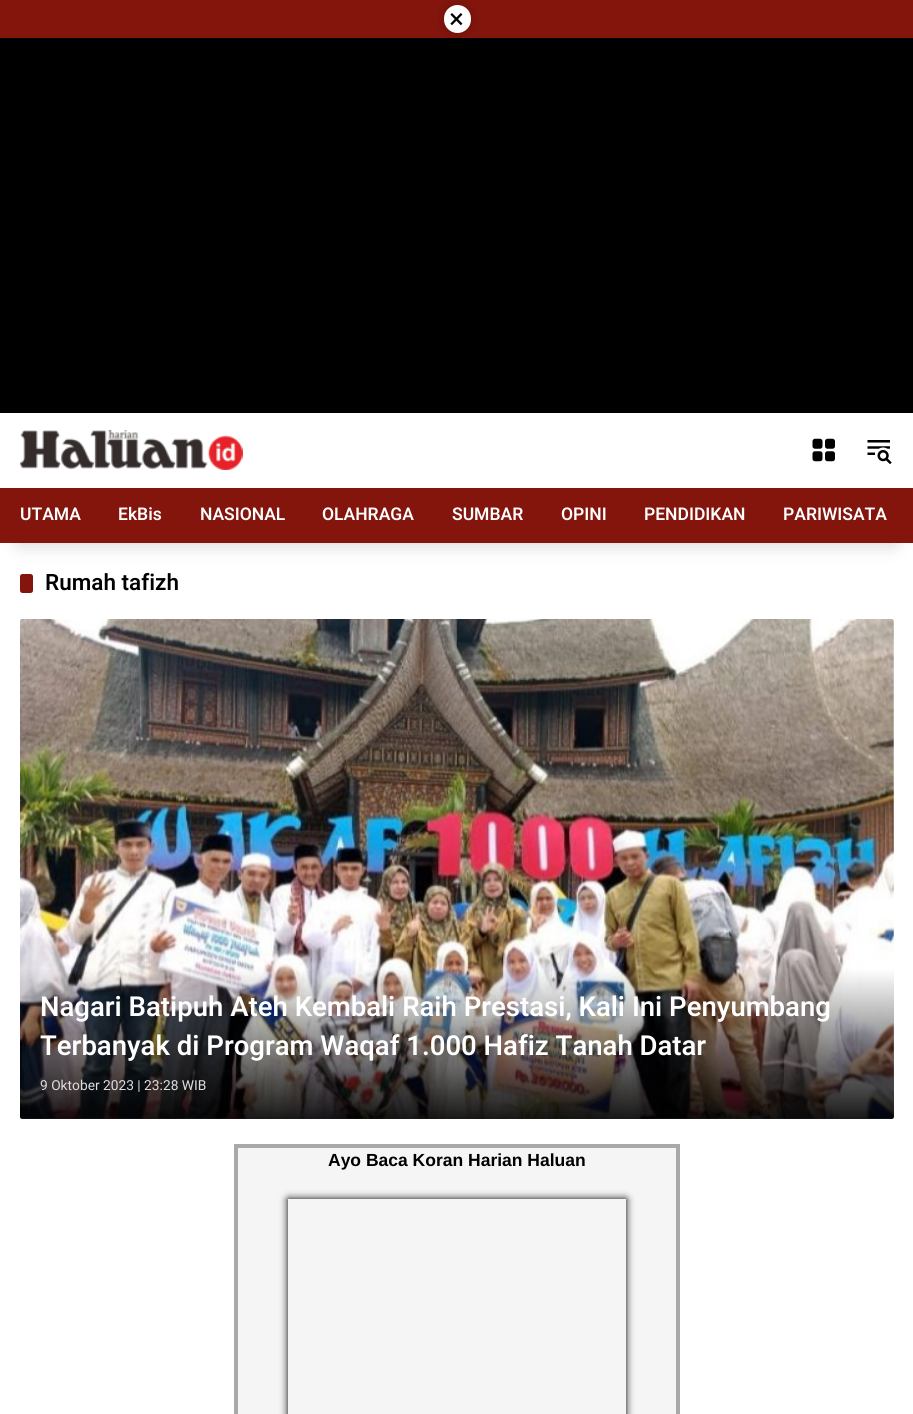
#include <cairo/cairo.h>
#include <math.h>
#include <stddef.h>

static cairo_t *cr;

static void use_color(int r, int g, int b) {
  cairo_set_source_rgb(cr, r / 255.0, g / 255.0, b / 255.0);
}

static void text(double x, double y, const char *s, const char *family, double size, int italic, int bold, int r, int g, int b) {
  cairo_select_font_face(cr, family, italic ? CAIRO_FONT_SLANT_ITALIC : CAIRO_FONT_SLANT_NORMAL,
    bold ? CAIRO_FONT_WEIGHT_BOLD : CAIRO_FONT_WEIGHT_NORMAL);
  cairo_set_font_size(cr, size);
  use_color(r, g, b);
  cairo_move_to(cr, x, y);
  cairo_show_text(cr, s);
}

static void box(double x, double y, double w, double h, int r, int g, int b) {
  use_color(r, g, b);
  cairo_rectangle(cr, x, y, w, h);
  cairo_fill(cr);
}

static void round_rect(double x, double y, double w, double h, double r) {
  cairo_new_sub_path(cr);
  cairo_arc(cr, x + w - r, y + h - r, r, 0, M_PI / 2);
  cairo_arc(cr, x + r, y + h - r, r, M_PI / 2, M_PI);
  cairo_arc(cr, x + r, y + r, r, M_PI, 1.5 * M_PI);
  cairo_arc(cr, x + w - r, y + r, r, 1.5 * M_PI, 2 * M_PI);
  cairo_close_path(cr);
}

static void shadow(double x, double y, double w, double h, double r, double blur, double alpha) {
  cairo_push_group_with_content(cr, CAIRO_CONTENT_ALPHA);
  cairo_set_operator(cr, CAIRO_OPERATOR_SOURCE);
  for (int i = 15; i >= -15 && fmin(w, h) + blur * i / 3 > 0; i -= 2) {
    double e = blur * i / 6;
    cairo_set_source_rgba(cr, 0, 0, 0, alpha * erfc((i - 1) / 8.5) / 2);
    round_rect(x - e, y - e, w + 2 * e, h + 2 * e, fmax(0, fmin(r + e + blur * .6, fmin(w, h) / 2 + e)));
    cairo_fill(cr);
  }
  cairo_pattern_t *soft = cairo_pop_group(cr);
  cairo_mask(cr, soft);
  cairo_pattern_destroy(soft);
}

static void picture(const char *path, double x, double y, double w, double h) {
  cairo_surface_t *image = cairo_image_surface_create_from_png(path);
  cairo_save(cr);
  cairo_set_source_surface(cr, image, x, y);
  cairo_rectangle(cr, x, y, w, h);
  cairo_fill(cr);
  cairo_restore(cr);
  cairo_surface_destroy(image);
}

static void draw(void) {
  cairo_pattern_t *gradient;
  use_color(0, 0, 0);
  cairo_paint(cr);
  box(0, 0, 913, 38, 132, 21, 13);
  use_color(0, 0, 0);
  shadow(444, 5, 27, 28, 13.5, 6, 0.2);
  use_color(255, 255, 255);
  round_rect(444, 5, 27, 28, 13.5);
  cairo_fill(cr);
  box(0, 413, 913, 1001, 255, 255, 255);
  picture("img_01.png", 20, 430, 223, 40);
  picture("img_02.png", 812, 438, 23, 24);
  picture("img_03.png", 867, 440, 25, 25);
  use_color(0, 0, 0);
  shadow(19, 525, 876, 18, 0, 9.5, 0.2);
  box(0, 488, 913, 55, 132, 21, 13);
  round_rect(20, 574, 13, 19, 2.5);
  cairo_fill(cr);
  picture("img_04.png", 20, 619, 874, 500);
  gradient = cairo_pattern_create_linear(457, 1119, 457, 969);
  cairo_pattern_add_color_stop_rgba(gradient, 0, 0, 0, 0, 0.9);
  cairo_pattern_add_color_stop_rgba(gradient, 1, 0, 0, 0, 0);
  cairo_set_source(cr, gradient);
  cairo_pattern_destroy(gradient);
  cairo_new_path(cr);
  cairo_move_to(cr, 20, 969);
  cairo_line_to(cr, 894, 969);
  cairo_line_to(cr, 894, 1116.5);
  cairo_curve_to(cr, 894, 1118, 893, 1119, 891.5, 1119);
  cairo_line_to(cr, 22.5, 1119);
  cairo_curve_to(cr, 21, 1119, 20, 1118, 20, 1116.5);
  cairo_close_path(cr);
  cairo_fill(cr);
  use_color(245, 245, 245);
  cairo_rectangle(cr, 236, 1146, 442, 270);
  cairo_fill_preserve(cr);
  use_color(169, 169, 169);
  cairo_set_line_width(cr, 4);
  cairo_stroke(cr);
  cairo_save(cr);
  cairo_set_fill_rule(cr, CAIRO_FILL_RULE_EVEN_ODD);
  cairo_new_path(cr);
  cairo_move_to(cr, 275, 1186);
  cairo_line_to(cr, 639, 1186);
  cairo_line_to(cr, 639, 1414);
  cairo_line_to(cr, 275, 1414);
  cairo_close_path(cr);
  cairo_move_to(cr, 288, 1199);
  cairo_line_to(cr, 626, 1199);
  cairo_line_to(cr, 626, 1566);
  cairo_line_to(cr, 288, 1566);
  cairo_close_path(cr);
  cairo_clip(cr);
  use_color(0, 0, 0);
  shadow(288, 1199, 338, 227, 0, 4, 1);
  cairo_restore(cr);
  text(449, 28, "×", "Heebo", 27.5, 0, 0, 0, 0, 0);
  text(20, 520, "UTAMA", "Heebo SemiBold", 17.5, 0, 0, 255, 255, 255);
  text(118, 520, "EkBis", "Heebo SemiBold", 17.5, 0, 0, 255, 255, 255);
  text(200, 520, "NASIONAL", "Heebo SemiBold", 17.5, 0, 0, 255, 255, 255);
  text(322, 520, "OLAHRAGA", "Heebo SemiBold", 17.5, 0, 0, 255, 255, 255);
  text(452, 520, "SUMBAR", "Heebo SemiBold", 17.5, 0, 0, 255, 255, 255);
  text(561, 520, "OPINI", "Heebo SemiBold", 17.5, 0, 0, 255, 255, 255);
  text(644, 520, "PENDIDIKAN", "Heebo SemiBold", 17.5, 0, 0, 255, 255, 255);
  text(783, 520, "PARIWISATA", "Heebo SemiBold", 17.5, 0, 0, 255, 255, 255);
  text(45, 590, "Rumah tafizh", "Heebo SemiBold", 22.5, 0, 0, 0, 0, 0);
  text(40, 1016, "Nagari Batipuh Ateh Kembali Raih Prestasi, Kali Ini Penyumbang", "Heebo SemiBold", 27.5, 0, 0, 255, 255, 255);
  text(40, 1055, "Terbanyak di Program Waqaf 1.000 Hafiz Tanah Datar", "Heebo SemiBold", 27.5, 0, 0, 255, 255, 255);
  text(40, 1090, "9 Oktober 2023 | 23:28 WIB", "Heebo", 13.75, 0, 0, 221, 221, 221);
  text(328, 1166, "Ayo Baca Koran Harian Haluan", "Liberation Sans", 17.5, 0, 1, 0, 0, 0);
}

int main(void) {
  cairo_surface_t *surface = cairo_image_surface_create(CAIRO_FORMAT_RGB24, 913, 1414);
  cr = cairo_create(surface);
  cairo_font_options_t *options = cairo_font_options_create();
  cairo_font_options_set_hint_metrics(options, CAIRO_HINT_METRICS_OFF);
  cairo_font_options_set_hint_style(options, CAIRO_HINT_STYLE_NONE);
  cairo_set_font_options(cr, options);
  cairo_set_miter_limit(cr, 4);
  draw();
  cairo_surface_write_to_png(surface, "out.png");
  cairo_font_options_destroy(options);
  cairo_destroy(cr);
  cairo_surface_destroy(surface);
  return 0;
}
